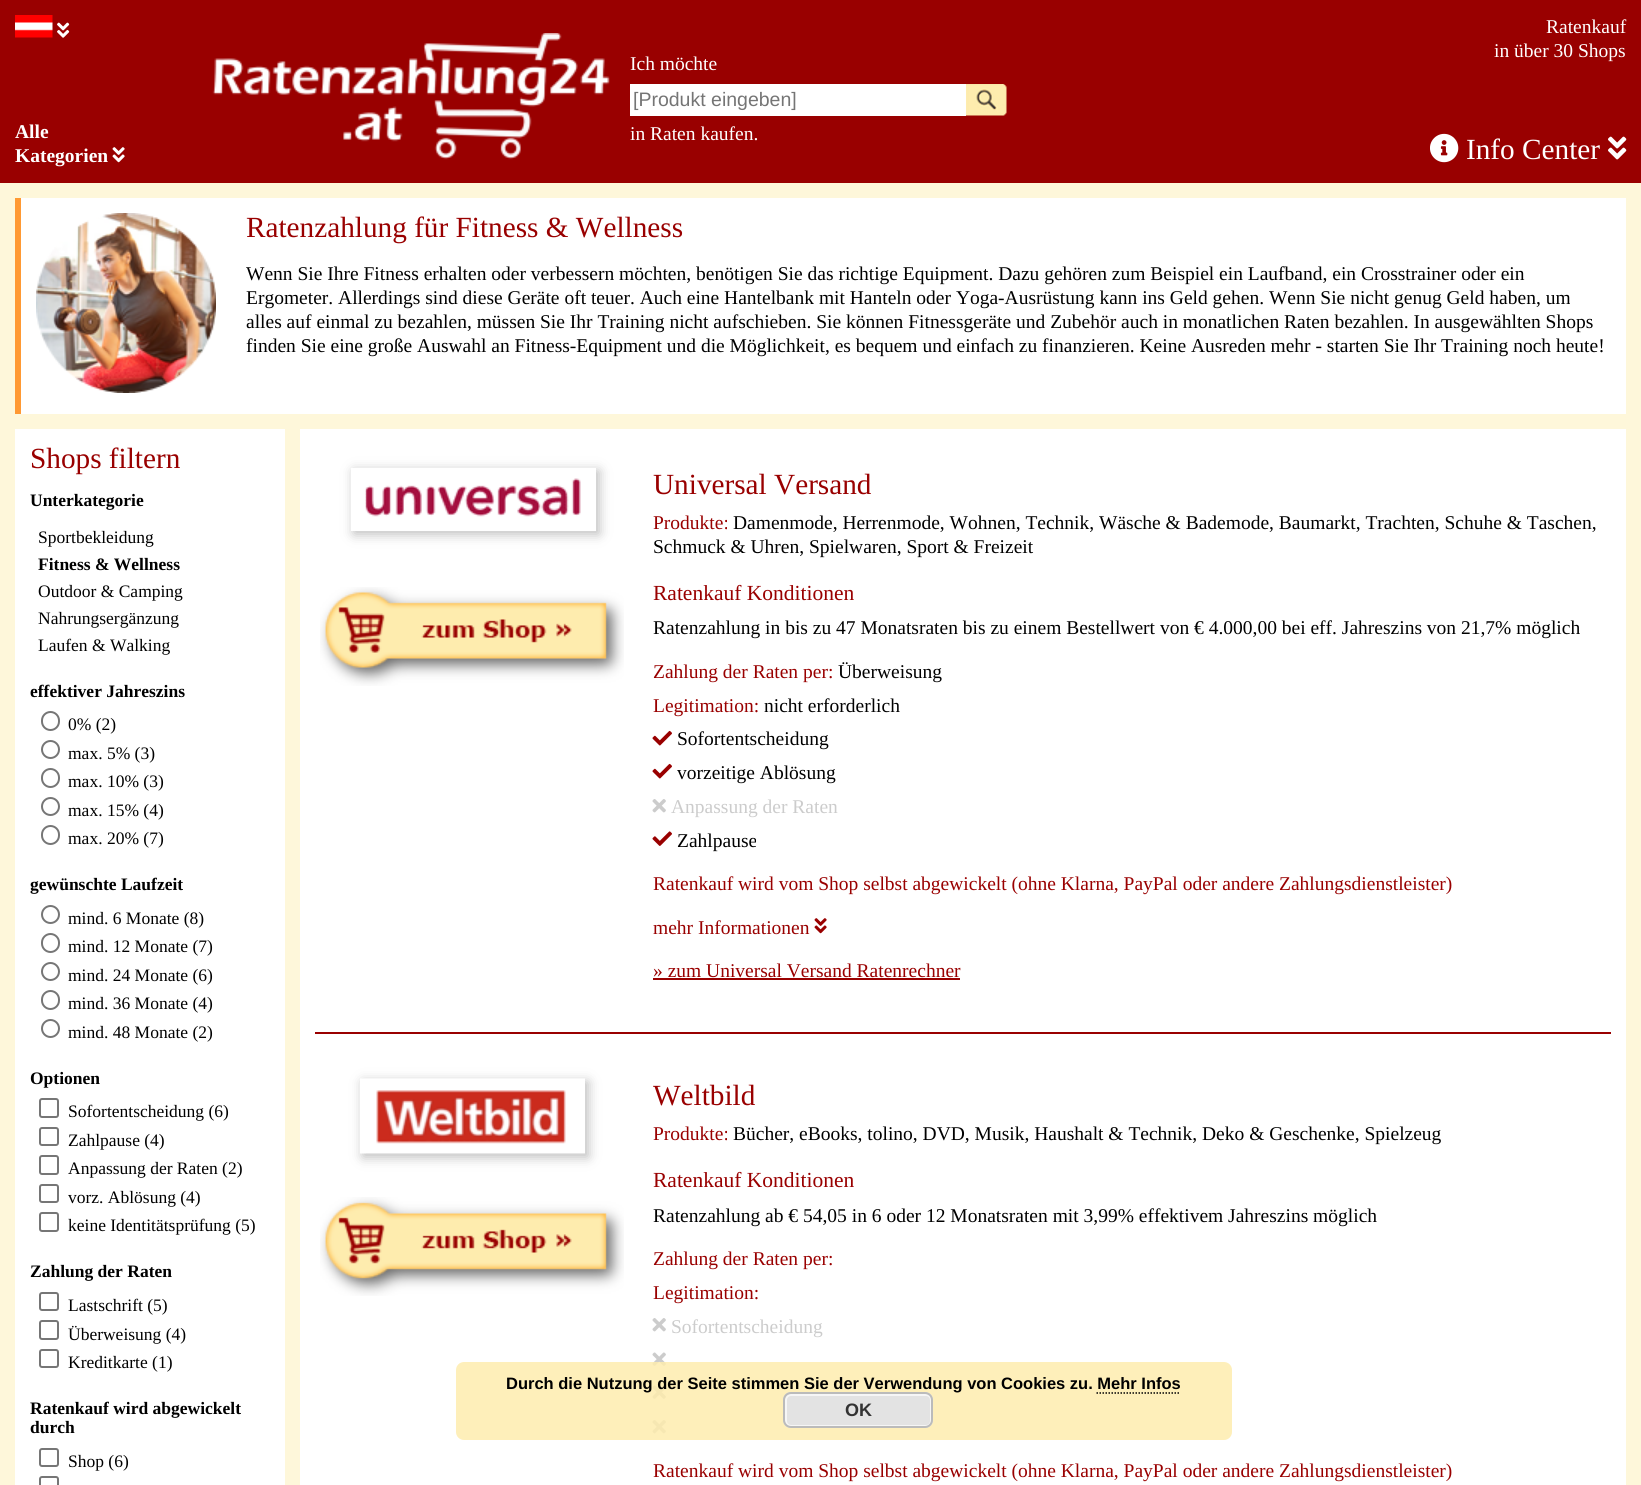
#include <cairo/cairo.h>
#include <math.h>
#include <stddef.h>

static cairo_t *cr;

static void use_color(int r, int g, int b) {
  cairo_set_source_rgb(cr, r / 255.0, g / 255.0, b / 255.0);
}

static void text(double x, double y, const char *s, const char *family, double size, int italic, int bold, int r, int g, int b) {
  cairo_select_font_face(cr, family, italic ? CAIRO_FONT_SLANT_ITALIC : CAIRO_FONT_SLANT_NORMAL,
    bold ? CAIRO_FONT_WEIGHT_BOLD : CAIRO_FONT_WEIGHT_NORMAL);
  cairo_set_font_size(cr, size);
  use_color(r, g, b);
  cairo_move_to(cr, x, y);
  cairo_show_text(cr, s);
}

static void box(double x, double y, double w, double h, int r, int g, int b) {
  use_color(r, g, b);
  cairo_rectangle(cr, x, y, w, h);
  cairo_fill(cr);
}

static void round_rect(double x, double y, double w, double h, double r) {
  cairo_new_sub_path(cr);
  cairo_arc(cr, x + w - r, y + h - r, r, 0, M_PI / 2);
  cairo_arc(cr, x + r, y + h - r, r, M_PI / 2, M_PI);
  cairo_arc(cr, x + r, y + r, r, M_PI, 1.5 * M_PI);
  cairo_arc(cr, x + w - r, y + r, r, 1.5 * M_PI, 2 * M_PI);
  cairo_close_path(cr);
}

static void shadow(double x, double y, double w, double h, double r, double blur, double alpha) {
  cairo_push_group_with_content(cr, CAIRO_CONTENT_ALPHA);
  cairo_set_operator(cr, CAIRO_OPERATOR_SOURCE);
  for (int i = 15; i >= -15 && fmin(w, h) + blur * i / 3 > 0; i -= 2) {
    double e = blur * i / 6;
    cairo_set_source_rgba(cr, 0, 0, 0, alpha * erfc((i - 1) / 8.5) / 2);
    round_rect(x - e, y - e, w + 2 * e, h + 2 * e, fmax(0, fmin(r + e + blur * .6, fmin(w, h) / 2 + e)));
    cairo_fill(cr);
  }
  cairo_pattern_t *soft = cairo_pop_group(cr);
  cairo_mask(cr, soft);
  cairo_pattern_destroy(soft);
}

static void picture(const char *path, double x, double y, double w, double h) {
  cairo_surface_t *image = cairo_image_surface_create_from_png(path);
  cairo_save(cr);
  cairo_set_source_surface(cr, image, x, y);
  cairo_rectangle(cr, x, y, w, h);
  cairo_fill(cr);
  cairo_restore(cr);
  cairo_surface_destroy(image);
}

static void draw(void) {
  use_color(254, 247, 218);
  cairo_paint(cr);
  box(0, 0, 1641, 183, 153, 0, 0);
  picture("img_01.png", 212, 33, 398, 127);
  box(630, 84, 336, 32, 255, 255, 255);
  picture("img_02.png", 966, 84, 41, 32);
  picture("img_03.png", 15, 15, 38, 23);
  picture("img_04.png", 57, 22, 13, 16);
  picture("img_05.png", 112, 147, 13, 16);
  picture("img_06.png", 1430, 133, 29, 30);
  picture("img_07.png", 1608, 136, 19, 24);
  box(21, 198, 1605, 216, 255, 255, 255);
  box(15, 198, 6, 216, 255, 153, 51);
  picture("img_08.png", 36, 213, 180, 180);
  box(15, 429, 270, 1056, 255, 255, 255);
  round_rect(42, 712, 17, 18, 8.5);
  use_color(118, 118, 118);
  cairo_stroke(cr);
  cairo_arc(cr, 50.5, 749.5, 8.5, 0, 2 * M_PI);
  cairo_stroke(cr);
  round_rect(42, 769, 17, 18, 8.5);
  cairo_stroke(cr);
  cairo_arc(cr, 50.5, 806.5, 8.5, 0, 2 * M_PI);
  cairo_stroke(cr);
  round_rect(42, 826, 17, 18, 8.5);
  cairo_stroke(cr);
  cairo_arc(cr, 50.5, 914.5, 8.5, 0, 2 * M_PI);
  cairo_stroke(cr);
  round_rect(42, 934, 17, 18, 8.5);
  cairo_stroke(cr);
  cairo_arc(cr, 50.5, 971.5, 8.5, 0, 2 * M_PI);
  cairo_stroke(cr);
  round_rect(42, 991, 17, 18, 8.5);
  cairo_stroke(cr);
  cairo_arc(cr, 50.5, 1028.5, 8.5, 0, 2 * M_PI);
  cairo_stroke(cr);
  round_rect(40, 1099, 18, 18, 2);
  cairo_stroke(cr);
  round_rect(40, 1128, 18, 17, 2);
  cairo_stroke(cr);
  round_rect(40, 1156, 18, 18, 2);
  cairo_stroke(cr);
  round_rect(40, 1185, 18, 17, 2);
  cairo_stroke(cr);
  round_rect(40, 1213, 18, 18, 2);
  cairo_stroke(cr);
  round_rect(40, 1293, 18, 17, 2);
  cairo_stroke(cr);
  round_rect(40, 1321, 18, 18, 2);
  cairo_stroke(cr);
  round_rect(40, 1350, 18, 17, 2);
  cairo_stroke(cr);
  round_rect(40, 1449, 18, 17, 2);
  cairo_stroke(cr);
  round_rect(40, 1477, 18, 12, 2);
  cairo_stroke(cr);
  box(300, 429, 1326, 1056, 255, 255, 255);
  box(315, 1032, 1296, 2, 153, 0, 0);
  cairo_save(cr);
  cairo_set_fill_rule(cr, CAIRO_FILL_RULE_EVEN_ODD);
  cairo_new_path(cr);
  cairo_move_to(cr, 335, 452);
  cairo_line_to(cr, 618, 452);
  cairo_line_to(cr, 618, 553);
  cairo_line_to(cr, 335, 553);
  cairo_close_path(cr);
  cairo_move_to(cr, 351, 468);
  cairo_line_to(cr, 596, 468);
  cairo_line_to(cr, 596, 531);
  cairo_line_to(cr, 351, 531);
  cairo_close_path(cr);
  cairo_clip(cr);
  use_color(187, 187, 187);
  shadow(354, 471, 245, 63, 0, 6, 1);
  cairo_restore(cr);
  picture("img_09.png", 365, 468, 231, 63);
  picture("img_10.png", 320, 587, 304, 99);
  picture("img_11.png", 652, 730, 20, 16);
  picture("img_11.png", 652, 763, 20, 16);
  picture("img_12.png", 652, 799, 14, 14);
  picture("img_13.png", 652, 831, 20, 15);
  picture("img_14.png", 814, 918, 13, 16);
  box(653, 978, 307, 2, 153, 0, 0);
  use_color(187, 187, 187);
  shadow(363, 1082, 225, 75, 0, 6, 1);
  picture("img_15.png", 360, 1078, 225, 76);
  picture("img_16.png", 320, 1197, 304, 99);
  picture("img_12.png", 652, 1318, 14, 14);
  picture("img_17.png", 652, 1352, 14, 14);
  picture("img_17.png", 652, 1385, 14, 14);
  picture("img_12.png", 652, 1420, 14, 14);
  cairo_set_source_rgba(cr, 0.996, 0.925, 0.682, 0.85);
  round_rect(456, 1362, 776, 78, 8);
  cairo_fill(cr);
  cairo_new_path(cr);
  cairo_move_to(cr, 1096.5, 1393);
  cairo_line_to(cr, 1180.5, 1393);
  use_color(0, 0, 0);
  cairo_set_line_width(cr, 1.5);
  cairo_set_dash(cr, (double[]){1.5, 1.5}, 2, 0);
  cairo_stroke(cr);
  text(630, 70, "Ich möchte", "Liberation Serif", 19.5, 0, 0, 255, 255, 255);
  text(633, 106, "[Produkt eingeben]", "Liberation Sans", 19.5, 0, 0, 117, 117, 117);
  text(630, 140, "in Raten kaufen.", "Liberation Serif", 19.5, 0, 0, 255, 255, 255);
  text(1546, 33, "Ratenkauf", "Liberation Serif", 19.5, 0, 0, 255, 255, 255);
  text(1494, 57, "in über 30 Shops", "Liberation Serif", 19.5, 0, 0, 255, 255, 255);
  text(15, 138, "Alle", "Liberation Serif", 19.5, 0, 1, 255, 255, 255);
  text(15, 162, "Kategorien", "Liberation Serif", 19.5, 0, 1, 255, 255, 255);
  text(1466, 159, "Info Center", "Liberation Serif", 29.25, 0, 0, 255, 255, 255);
  text(246, 237, "Ratenzahlung für Fitness & Wellness", "Liberation Serif", 29.25, 0, 0, 153, 0, 0);
  text(246, 280, "Wenn Sie Ihre Fitness erhalten oder verbessern möchten, benötigen Sie das richtige Equipment. Dazu gehören zum Beispiel ein Laufband, ein Crosstrainer oder ein", "Liberation Serif", 19.5, 0, 0, 0, 0, 0);
  text(246, 304, "Ergometer. Allerdings sind diese Geräte oft teuer. Auch eine Hantelbank mit Hanteln oder Yoga-Ausrüstung kann ins Geld gehen. Wenn Sie nicht genug Geld haben, um", "Liberation Serif", 19.5, 0, 0, 0, 0, 0);
  text(246, 328, "alles auf einmal zu bezahlen, müssen Sie Ihr Training nicht aufschieben. Sie können Fitnessgeräte und Zubehör auch in monatlichen Raten bezahlen. In ausgewählten Shops", "Liberation Serif", 19.5, 0, 0, 0, 0, 0);
  text(246, 352, "finden Sie eine große Auswahl an Fitness-Equipment und die Möglichkeit, es bequem und einfach zu finanzieren. Keine Ausreden mehr - starten Sie Ihr Training noch heute!", "Liberation Serif", 19.5, 0, 0, 0, 0, 0);
  text(30, 468, "Shops filtern", "Liberation Serif", 29.25, 0, 0, 153, 0, 0);
  text(30, 506, "Unterkategorie", "Liberation Serif", 17.5, 0, 1, 0, 0, 0);
  text(38, 543, "Sportbekleidung", "Liberation Serif", 17.5, 0, 0, 0, 0, 0);
  text(38, 570, "Fitness & Wellness", "Liberation Serif", 17.5, 0, 1, 0, 0, 0);
  text(38, 597, "Outdoor & Camping", "Liberation Serif", 17.5, 0, 0, 0, 0, 0);
  text(38, 624, "Nahrungsergänzung", "Liberation Serif", 17.5, 0, 0, 0, 0, 0);
  text(38, 651, "Laufen & Walking", "Liberation Serif", 17.5, 0, 0, 0, 0, 0);
  text(30, 697, "effektiver Jahreszins", "Liberation Serif", 17.5, 0, 1, 0, 0, 0);
  text(68, 730, "0% (2)", "Liberation Serif", 17.5, 0, 0, 0, 0, 0);
  text(68, 759, "max. 5% (3)", "Liberation Serif", 17.5, 0, 0, 0, 0, 0);
  text(68, 787, "max. 10% (3)", "Liberation Serif", 17.5, 0, 0, 0, 0, 0);
  text(68, 816, "max. 15% (4)", "Liberation Serif", 17.5, 0, 0, 0, 0, 0);
  text(68, 844, "max. 20% (7)", "Liberation Serif", 17.5, 0, 0, 0, 0, 0);
  text(30, 890, "gewünschte Laufzeit", "Liberation Serif", 17.5, 0, 1, 0, 0, 0);
  text(68, 924, "mind. 6 Monate (8)", "Liberation Serif", 17.5, 0, 0, 0, 0, 0);
  text(68, 952, "mind. 12 Monate (7)", "Liberation Serif", 17.5, 0, 0, 0, 0, 0);
  text(68, 981, "mind. 24 Monate (6)", "Liberation Serif", 17.5, 0, 0, 0, 0, 0);
  text(68, 1009, "mind. 36 Monate (4)", "Liberation Serif", 17.5, 0, 0, 0, 0, 0);
  text(68, 1038, "mind. 48 Monate (2)", "Liberation Serif", 17.5, 0, 0, 0, 0, 0);
  text(30, 1084, "Optionen", "Liberation Serif", 17.5, 0, 1, 0, 0, 0);
  text(68, 1117, "Sofortentscheidung (6)", "Liberation Serif", 17.5, 0, 0, 0, 0, 0);
  text(68, 1146, "Zahlpause (4)", "Liberation Serif", 17.5, 0, 0, 0, 0, 0);
  text(68, 1174, "Anpassung der Raten (2)", "Liberation Serif", 17.5, 0, 0, 0, 0, 0);
  text(68, 1203, "vorz. Ablösung (4)", "Liberation Serif", 17.5, 0, 0, 0, 0, 0);
  text(68, 1231, "keine Identitätsprüfung (5)", "Liberation Serif", 17.5, 0, 0, 0, 0, 0);
  text(30, 1277, "Zahlung der Raten", "Liberation Serif", 17.5, 0, 1, 0, 0, 0);
  text(68, 1311, "Lastschrift (5)", "Liberation Serif", 17.5, 0, 0, 0, 0, 0);
  text(68, 1340, "Überweisung (4)", "Liberation Serif", 17.5, 0, 0, 0, 0, 0);
  text(68, 1368, "Kreditkarte (1)", "Liberation Serif", 17.5, 0, 0, 0, 0, 0);
  text(30, 1414, "Ratenkauf wird abgewickelt", "Liberation Serif", 17.5, 0, 1, 0, 0, 0);
  text(30, 1433, "durch", "Liberation Serif", 17.5, 0, 1, 0, 0, 0);
  text(68, 1467, "Shop (6)", "Liberation Serif", 17.5, 0, 0, 0, 0, 0);
  text(653, 494, "Universal Versand", "Liberation Serif", 29.25, 0, 0, 153, 0, 0);
  text(653, 529, "Produkte:", "Liberation Serif", 19.5, 0, 0, 153, 0, 0);
  text(733, 529, "Damenmode, Herrenmode, Wohnen, Technik, Wäsche & Bademode, Baumarkt, Trachten, Schuhe & Taschen,", "Liberation Serif", 19.5, 0, 0, 0, 0, 0);
  text(653, 553, "Schmuck & Uhren, Spielwaren, Sport & Freizeit", "Liberation Serif", 19.5, 0, 0, 0, 0, 0);
  text(653, 600, "Ratenkauf Konditionen", "Liberation Serif", 21.5, 0, 0, 153, 0, 0);
  text(653, 634, "Ratenzahlung in bis zu 47 Monatsraten bis zu einem Bestellwert von € 4.000,00 bei eff. Jahreszins von 21,7% möglich", "Liberation Serif", 19.5, 0, 0, 0, 0, 0);
  text(653, 678, "Zahlung der Raten per:", "Liberation Serif", 19.5, 0, 0, 153, 0, 0);
  text(838, 678, "Überweisung", "Liberation Serif", 19.5, 0, 0, 0, 0, 0);
  text(653, 712, "Legitimation:", "Liberation Serif", 19.5, 0, 0, 153, 0, 0);
  text(764, 712, "nicht erforderlich", "Liberation Serif", 19.5, 0, 0, 0, 0, 0);
  text(677, 745, "Sofortentscheidung", "Liberation Serif", 19.5, 0, 0, 0, 0, 0);
  text(677, 779, "vorzeitige Ablösung", "Liberation Serif", 19.5, 0, 0, 0, 0, 0);
  text(671, 813, "Anpassung der Raten", "Liberation Serif", 19.5, 0, 0, 204, 204, 204);
  text(677, 847, "Zahlpause", "Liberation Serif", 19.5, 0, 0, 0, 0, 0);
  text(653, 890, "Ratenkauf wird vom Shop selbst abgewickelt (ohne Klarna, PayPal oder andere Zahlungsdienstleister)", "Liberation Serif", 19.5, 0, 0, 153, 0, 0);
  text(653, 934, "mehr Informationen", "Liberation Serif", 19.5, 0, 0, 153, 0, 0);
  text(653, 977, "» zum Universal Versand Ratenrechner", "Liberation Serif", 19.5, 0, 0, 153, 0, 0);
  text(653, 1105, "Weltbild", "Liberation Serif", 29.25, 0, 0, 153, 0, 0);
  text(653, 1140, "Produkte:", "Liberation Serif", 19.5, 0, 0, 153, 0, 0);
  text(733, 1140, "Bücher, eBooks, tolino, DVD, Musik, Haushalt & Technik, Deko & Geschenke, Spielzeug", "Liberation Serif", 19.5, 0, 0, 0, 0, 0);
  text(653, 1187, "Ratenkauf Konditionen", "Liberation Serif", 21.5, 0, 0, 153, 0, 0);
  text(653, 1222, "Ratenzahlung ab € 54,05 in 6 oder 12 Monatsraten mit 3,99% effektivem Jahreszins möglich", "Liberation Serif", 19.5, 0, 0, 0, 0, 0);
  text(653, 1265, "Zahlung der Raten per:", "Liberation Serif", 19.5, 0, 0, 153, 0, 0);
  text(653, 1299, "Legitimation:", "Liberation Serif", 19.5, 0, 0, 153, 0, 0);
  text(671, 1333, "Sofortentscheidung", "Liberation Serif", 19.5, 0, 0, 204, 204, 204);
  text(653, 1477, "Ratenkauf wird vom Shop selbst abgewickelt (ohne Klarna, PayPal oder andere Zahlungsdienstleister)", "Liberation Serif", 19.5, 0, 0, 153, 0, 0);
  text(506, 1389, "Durch die Nutzung der Seite stimmen Sie der Verwendung von Cookies zu. Mehr Infos", "Liberation Sans", 16.5, 0, 1, 0, 0, 0);
  use_color(227, 227, 227);
  round_rect(783, 1392, 150, 36, 8);
  cairo_fill(cr);
  round_rect(786, 1395, 145, 31, 5);
  use_color(246, 246, 246);
  cairo_set_line_width(cr, 2);
  cairo_set_dash(cr, NULL, 0, 0);
  cairo_stroke(cr);
  round_rect(784, 1393, 148, 34, 7);
  use_color(187, 187, 187);
  cairo_stroke(cr);
  text(845, 1416, "OK", "Liberation Sans", 18, 0, 1, 51, 51, 51);
}

int main(void) {
  cairo_surface_t *surface = cairo_image_surface_create(CAIRO_FORMAT_RGB24, 1641, 1485);
  cr = cairo_create(surface);
  cairo_font_options_t *options = cairo_font_options_create();
  cairo_font_options_set_hint_metrics(options, CAIRO_HINT_METRICS_OFF);
  cairo_font_options_set_hint_style(options, CAIRO_HINT_STYLE_NONE);
  cairo_set_font_options(cr, options);
  cairo_set_miter_limit(cr, 4);
  draw();
  cairo_surface_write_to_png(surface, "out.png");
  cairo_font_options_destroy(options);
  cairo_destroy(cr);
  cairo_surface_destroy(surface);
  return 0;
}
